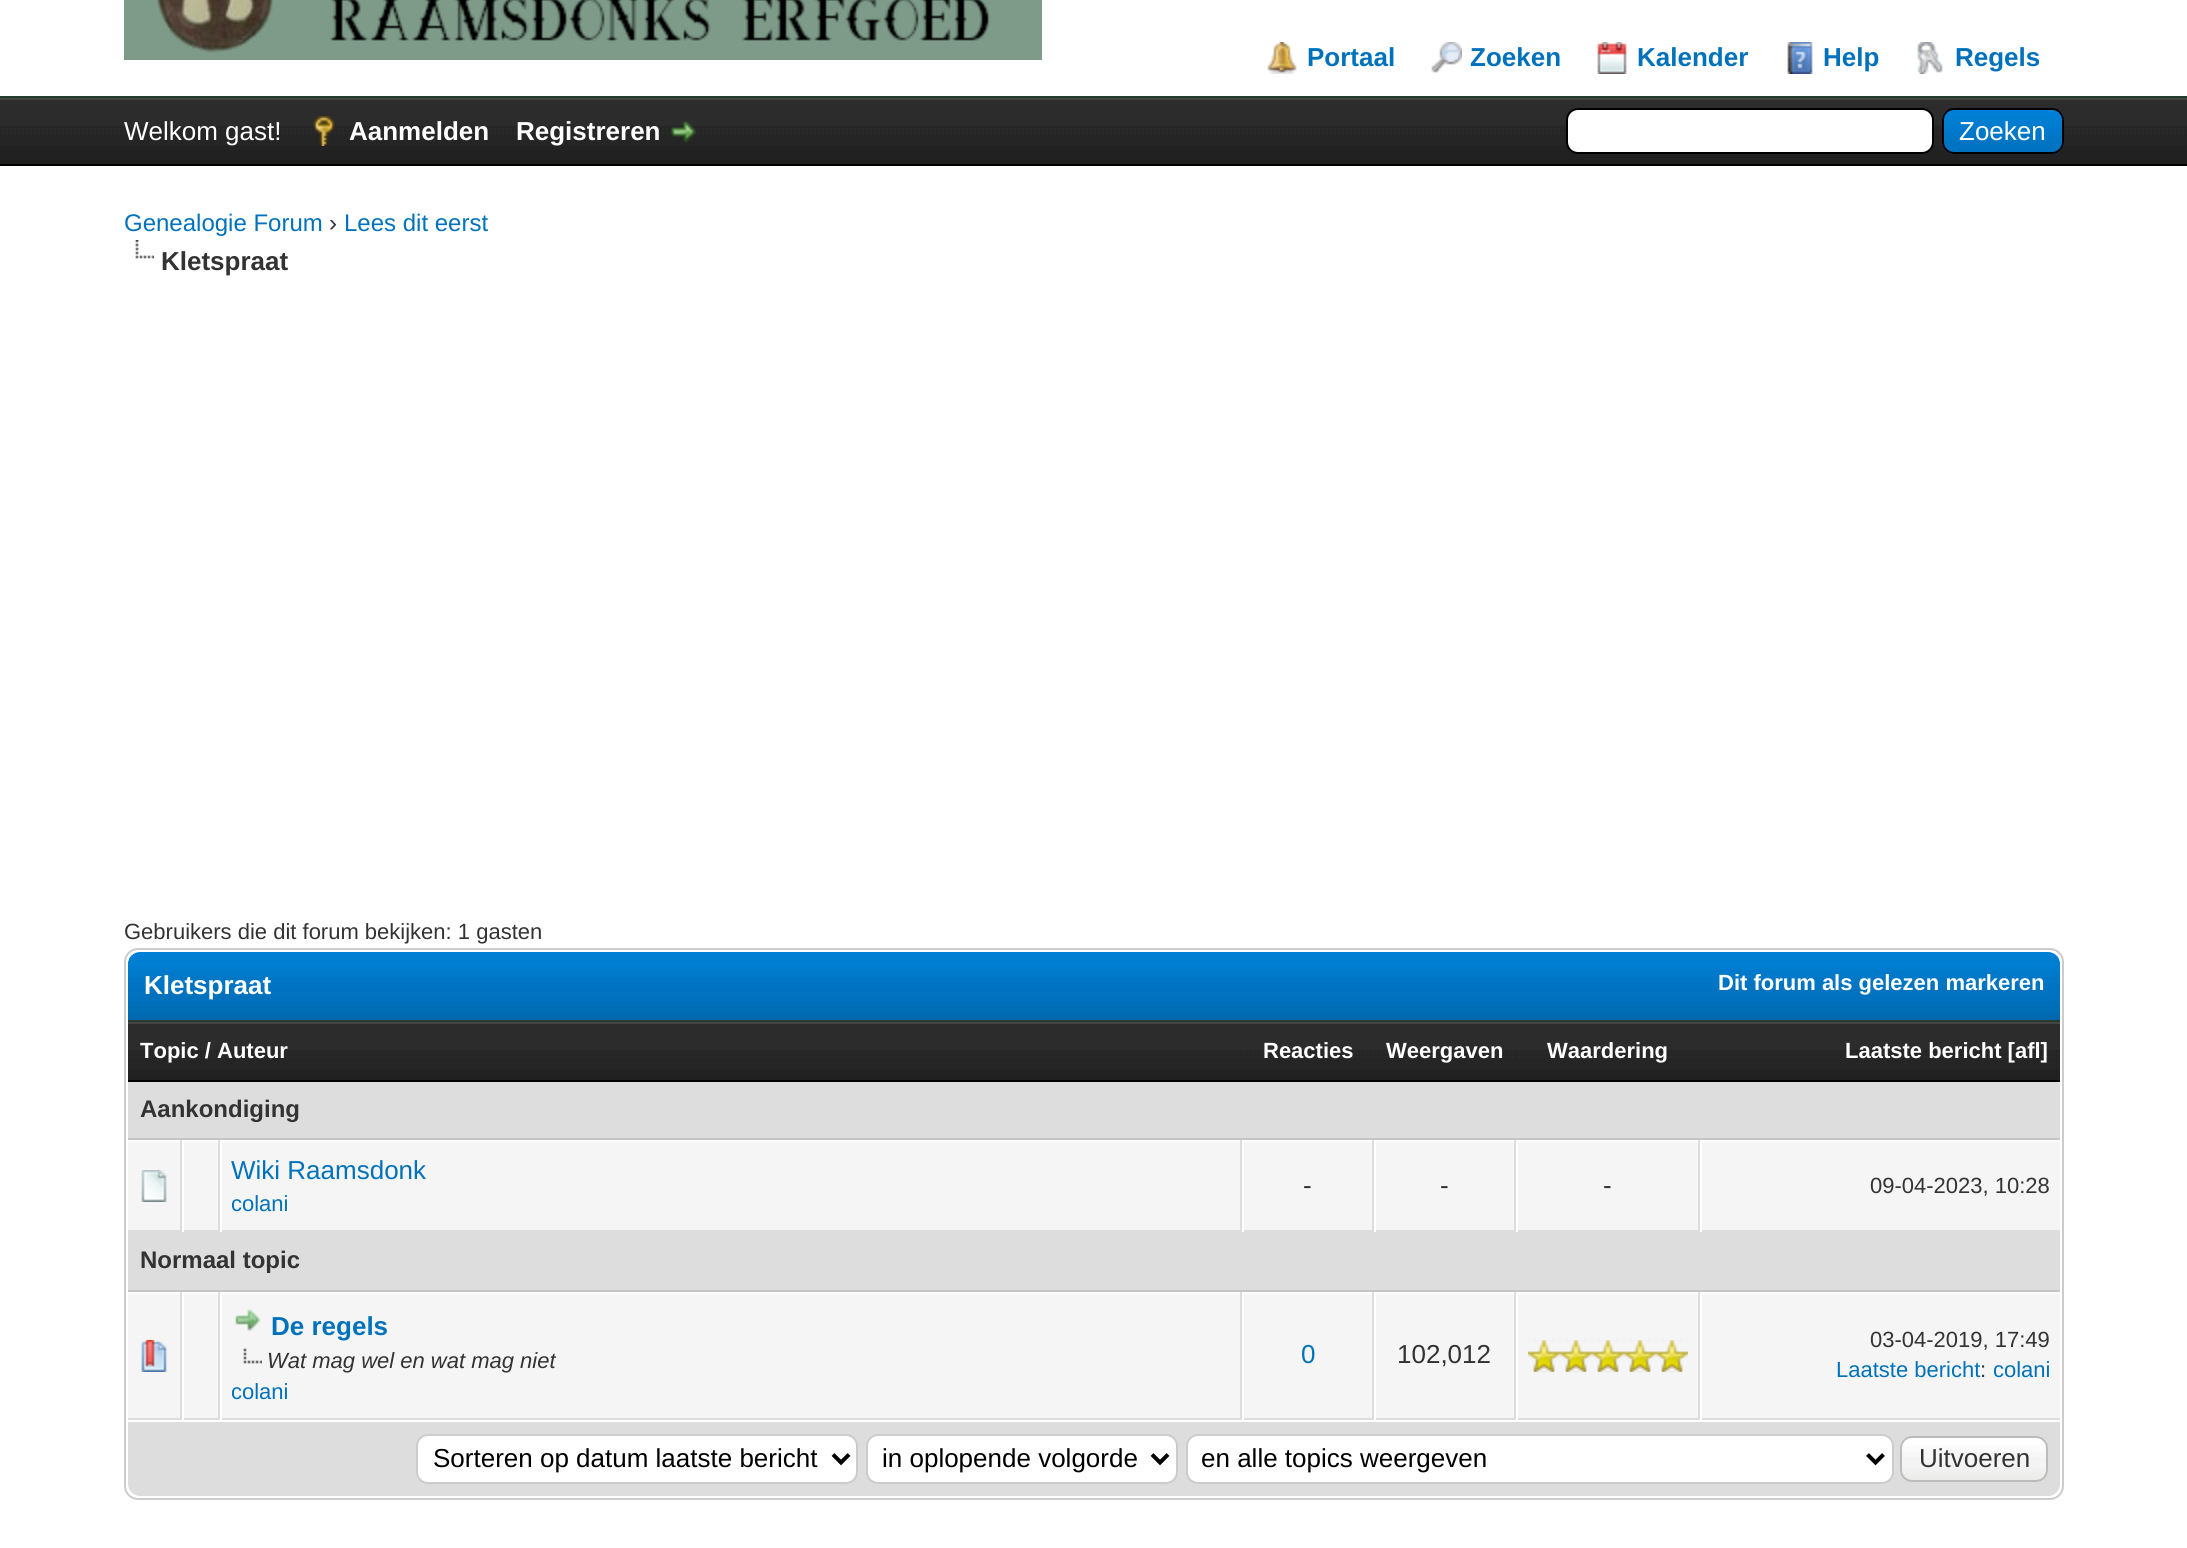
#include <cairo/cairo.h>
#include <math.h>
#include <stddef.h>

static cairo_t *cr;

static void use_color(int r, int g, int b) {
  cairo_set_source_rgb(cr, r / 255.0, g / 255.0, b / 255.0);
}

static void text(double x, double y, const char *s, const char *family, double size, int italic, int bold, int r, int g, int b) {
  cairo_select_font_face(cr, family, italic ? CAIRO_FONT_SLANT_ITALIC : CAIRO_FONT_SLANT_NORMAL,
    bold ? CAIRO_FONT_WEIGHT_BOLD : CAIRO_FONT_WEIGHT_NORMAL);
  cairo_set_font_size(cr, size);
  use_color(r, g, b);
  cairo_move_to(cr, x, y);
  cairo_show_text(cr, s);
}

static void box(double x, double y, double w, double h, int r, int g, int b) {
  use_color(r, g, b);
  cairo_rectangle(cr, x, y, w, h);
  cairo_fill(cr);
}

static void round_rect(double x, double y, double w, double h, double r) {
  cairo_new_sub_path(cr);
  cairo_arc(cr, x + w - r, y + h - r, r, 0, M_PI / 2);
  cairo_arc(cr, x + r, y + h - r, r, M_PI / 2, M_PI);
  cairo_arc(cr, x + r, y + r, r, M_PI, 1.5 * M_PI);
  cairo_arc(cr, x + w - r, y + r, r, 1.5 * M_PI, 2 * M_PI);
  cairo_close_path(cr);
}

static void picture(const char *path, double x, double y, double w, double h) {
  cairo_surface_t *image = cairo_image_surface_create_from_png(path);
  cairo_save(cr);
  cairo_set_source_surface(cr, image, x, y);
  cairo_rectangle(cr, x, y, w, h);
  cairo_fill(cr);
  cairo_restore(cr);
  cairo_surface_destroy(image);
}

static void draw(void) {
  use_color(255, 255, 255);
  cairo_paint(cr);
  box(0, 96, 2187, 2, 38, 60, 48);
  picture("img_01.png", 124, 0, 918, 60);
  picture("img_02.png", 1267, 42, 30, 32);
  picture("img_03.png", 1431, 42, 31, 31);
  picture("img_04.png", 1597, 42, 30, 32);
  picture("img_05.png", 1787, 42, 26, 32);
  picture("img_06.png", 1917, 42, 26, 32);
  picture("img_07.png", 0, 100, 2187, 64);
  box(0, 98, 2187, 2, 68, 68, 68);
  box(0, 164, 2187, 2, 0, 0, 0);
  picture("img_08.png", 313, 116, 22, 30);
  picture("img_09.png", 671, 121, 26, 22);
  use_color(255, 255, 255);
  round_rect(1567, 109, 366, 44, 11);
  cairo_fill_preserve(cr);
  use_color(0, 0, 0);
  cairo_stroke(cr);
  picture("img_10.png", 1942, 110, 122, 44);
  round_rect(1943, 109, 120, 44, 11);
  cairo_stroke(cr);
  picture("img_11.png", 135, 240, 19, 19);
  round_rect(125, 949, 1938, 550, 13);
  use_color(204, 204, 204);
  cairo_stroke(cr);
  picture("img_12.png", 128, 952, 1932, 68);
  box(128, 1020, 1932, 2, 38, 60, 48);
  picture("img_13.png", 128, 1024, 1114, 56);
  box(128, 1022, 1932, 2, 68, 68, 68);
  box(128, 1080, 1932, 2, 0, 0, 0);
  picture("img_14.png", 1242, 1024, 132, 56);
  picture("img_15.png", 1374, 1024, 142, 56);
  picture("img_16.png", 1516, 1024, 184, 56);
  picture("img_17.png", 1700, 1024, 360, 56);
  box(128, 1082, 1932, 56, 221, 221, 221);
  box(128, 1138, 1932, 2, 197, 197, 197);
  box(128, 1142, 52, 88, 245, 245, 245);
  box(180, 1140, 2, 92, 221, 221, 221);
  box(128, 1230, 54, 2, 221, 221, 221);
  picture("img_18.png", 141, 1170, 26, 32);
  box(184, 1142, 34, 88, 245, 245, 245);
  box(218, 1140, 2, 92, 221, 221, 221);
  box(182, 1230, 38, 2, 221, 221, 221);
  box(182, 1230, 2, 2, 255, 255, 255);
  box(222, 1142, 1018, 88, 245, 245, 245);
  box(1240, 1140, 2, 92, 221, 221, 221);
  box(220, 1230, 1022, 2, 221, 221, 221);
  box(220, 1230, 2, 2, 255, 255, 255);
  box(1244, 1142, 128, 88, 245, 245, 245);
  box(1372, 1140, 2, 92, 221, 221, 221);
  box(1242, 1230, 132, 2, 221, 221, 221);
  box(1242, 1230, 2, 2, 255, 255, 255);
  box(1376, 1142, 138, 88, 245, 245, 245);
  box(1514, 1140, 2, 92, 221, 221, 221);
  box(1374, 1230, 142, 2, 221, 221, 221);
  box(1374, 1230, 2, 2, 255, 255, 255);
  box(1518, 1142, 180, 88, 245, 245, 245);
  box(1698, 1140, 2, 92, 221, 221, 221);
  box(1516, 1230, 544, 2, 221, 221, 221);
  box(1516, 1230, 2, 2, 255, 255, 255);
  box(1702, 1142, 358, 88, 245, 245, 245);
  box(1700, 1230, 2, 2, 255, 255, 255);
  box(128, 1232, 1932, 58, 221, 221, 221);
  box(128, 1290, 1932, 2, 197, 197, 197);
  box(128, 1294, 52, 124, 245, 245, 245);
  box(180, 1292, 2, 128, 221, 221, 221);
  box(128, 1418, 54, 2, 221, 221, 221);
  picture("img_19.png", 141, 1340, 26, 32);
  box(184, 1294, 34, 124, 245, 245, 245);
  box(218, 1292, 2, 128, 221, 221, 221);
  box(182, 1418, 38, 2, 221, 221, 221);
  box(182, 1418, 2, 2, 255, 255, 255);
  box(222, 1294, 1018, 124, 245, 245, 245);
  box(1240, 1292, 2, 128, 221, 221, 221);
  box(220, 1418, 1022, 2, 221, 221, 221);
  box(220, 1418, 2, 2, 255, 255, 255);
  picture("img_20.png", 235, 1309, 26, 22);
  picture("img_21.png", 243, 1348, 19, 16);
  box(1518, 1294, 180, 124, 245, 245, 245);
  box(1698, 1292, 2, 128, 221, 221, 221);
  box(1516, 1418, 544, 2, 221, 221, 221);
  box(1516, 1418, 2, 2, 255, 255, 255);
  picture("img_22.png", 1528, 1340, 160, 32);
  picture("img_23.png", 1528, 1340, 160, 32);
  box(1244, 1294, 128, 124, 245, 245, 245);
  box(1372, 1292, 2, 128, 221, 221, 221);
  box(1242, 1418, 132, 2, 221, 221, 221);
  box(1242, 1418, 2, 2, 255, 255, 255);
  box(1376, 1294, 138, 124, 245, 245, 245);
  box(1514, 1292, 2, 128, 221, 221, 221);
  box(1374, 1418, 142, 2, 221, 221, 221);
  box(1374, 1418, 2, 2, 255, 255, 255);
  box(1702, 1294, 358, 124, 245, 245, 245);
  box(1700, 1418, 2, 2, 255, 255, 255);
  use_color(221, 221, 221);
  cairo_new_path(cr);
  cairo_move_to(cr, 128, 1420);
  cairo_line_to(cr, 2060, 1420);
  cairo_line_to(cr, 2060, 1484);
  cairo_curve_to(cr, 2060, 1490.5, 2054.5, 1496, 2048, 1496);
  cairo_line_to(cr, 140, 1496);
  cairo_curve_to(cr, 133.5, 1496, 128, 1490.5, 128, 1484);
  cairo_close_path(cr);
  cairo_fill(cr);
  box(128, 1420, 1932, 2, 255, 255, 255);
  round_rect(417, 1435, 440, 48, 11);
  cairo_fill_preserve(cr);
  use_color(204, 204, 204);
  cairo_stroke(cr);
  cairo_new_path(cr);
  cairo_move_to(cr, 833, 1454.5);
  cairo_line_to(cr, 841, 1462.5);
  cairo_line_to(cr, 849, 1454.5);
  use_color(0, 0, 0);
  cairo_set_line_width(cr, 4);
  cairo_stroke(cr);
  use_color(255, 255, 255);
  round_rect(867, 1435, 310, 48, 11);
  cairo_fill_preserve(cr);
  use_color(204, 204, 204);
  cairo_set_line_width(cr, 2);
  cairo_stroke(cr);
  cairo_new_path(cr);
  cairo_move_to(cr, 1152, 1454.5);
  cairo_line_to(cr, 1160, 1462.5);
  cairo_line_to(cr, 1168, 1454.5);
  use_color(0, 0, 0);
  cairo_set_line_width(cr, 4);
  cairo_stroke(cr);
  use_color(255, 255, 255);
  round_rect(1187, 1435, 706, 48, 11);
  cairo_fill_preserve(cr);
  use_color(204, 204, 204);
  cairo_set_line_width(cr, 2);
  cairo_stroke(cr);
  cairo_new_path(cr);
  cairo_move_to(cr, 1867.5, 1454.5);
  cairo_line_to(cr, 1875.5, 1462.5);
  cairo_line_to(cr, 1883.5, 1454.5);
  use_color(0, 0, 0);
  cairo_set_line_width(cr, 4);
  cairo_stroke(cr);
  picture("img_24.png", 1900, 1438, 148, 44);
  round_rect(1901, 1437, 146, 44, 11);
  use_color(187, 187, 187);
  cairo_set_line_width(cr, 2);
  cairo_stroke(cr);
  text(1307, 66, "Portaal", "Liberation Sans", 26, 0, 1, 0, 114, 188);
  text(1470, 66, "Zoeken", "Liberation Sans", 26, 0, 1, 0, 114, 188);
  text(1637, 66, "Kalender", "Liberation Sans", 26, 0, 1, 0, 114, 188);
  text(1823, 66, "Help", "Liberation Sans", 26, 0, 1, 0, 114, 188);
  text(1955, 66, "Regels", "Liberation Sans", 26, 0, 1, 0, 114, 188);
  text(124, 140, "Welkom gast!", "Liberation Sans", 26, 0, 0, 255, 255, 255);
  text(349, 140, "Aanmelden", "Liberation Sans", 26, 0, 1, 255, 255, 255);
  text(516, 140, "Registreren", "Liberation Sans", 26, 0, 1, 255, 255, 255);
  text(1959, 140, "Zoeken", "Liberation Sans", 26, 0, 0, 255, 255, 255);
  text(124, 231, "Genealogie Forum", "Liberation Sans", 24, 0, 0, 0, 114, 188);
  text(329, 231, "›", "Liberation Sans", 24, 0, 0, 51, 51, 51);
  text(344, 231, "Lees dit eerst", "Liberation Sans", 24, 0, 0, 0, 114, 188);
  text(161, 270, "Kletspraat", "Liberation Sans", 26, 0, 1, 51, 51, 51);
  text(124, 939, "Gebruikers die dit forum bekijken: 1 gasten", "Liberation Sans", 22, 0, 0, 51, 51, 51);
  text(144, 994, "Kletspraat", "Liberation Sans", 26, 0, 1, 255, 255, 255);
  text(1718, 990, "Dit forum als gelezen markeren", "Liberation Sans", 22, 0, 1, 255, 255, 255);
  text(140, 1058, "Topic / Auteur", "Liberation Sans", 22, 0, 1, 255, 255, 255);
  text(1263, 1058, "Reacties", "Liberation Sans", 22, 0, 1, 255, 255, 255);
  text(1386, 1058, "Weergaven", "Liberation Sans", 22, 0, 1, 255, 255, 255);
  text(1547, 1058, "Waardering", "Liberation Sans", 22, 0, 1, 255, 255, 255);
  text(1845, 1058, "Laatste bericht [afl]", "Liberation Sans", 22, 0, 1, 255, 255, 255);
  text(140, 1117, "Aankondiging", "Liberation Sans", 24, 0, 1, 51, 51, 51);
  text(231, 1179, "Wiki Raamsdonk", "Liberation Sans", 26, 0, 0, 0, 114, 188);
  text(231, 1211, "colani", "Liberation Sans", 22, 0, 0, 0, 114, 188);
  text(1303, 1194, "-", "Liberation Sans", 26, 0, 0, 51, 51, 51);
  text(1440, 1194, "-", "Liberation Sans", 26, 0, 0, 51, 51, 51);
  text(1603, 1194, "-", "Liberation Sans", 26, 0, 0, 51, 51, 51);
  text(1870, 1193, "09-04-2023, 10:28", "Liberation Sans", 22, 0, 0, 51, 51, 51);
  text(140, 1268, "Normaal topic", "Liberation Sans", 24, 0, 1, 51, 51, 51);
  text(271, 1335, "De regels", "Liberation Sans", 26, 0, 1, 0, 114, 188);
  text(267, 1368, "Wat mag wel en wat mag niet", "Liberation Sans", 22, 1, 0, 51, 51, 51);
  text(231, 1399, "colani", "Liberation Sans", 22, 0, 0, 0, 114, 188);
  text(1301, 1363, "0", "Liberation Sans", 26, 0, 0, 0, 114, 188);
  text(1397, 1363, "102,012", "Liberation Sans", 26, 0, 0, 51, 51, 51);
  text(1870, 1347, "03-04-2019, 17:49", "Liberation Sans", 22, 0, 0, 51, 51, 51);
  text(1836, 1377, "Laatste bericht", "Liberation Sans", 22, 0, 0, 0, 114, 188);
  text(1980, 1377, ":", "Liberation Sans", 22, 0, 0, 51, 51, 51);
  text(1993, 1377, "colani", "Liberation Sans", 22, 0, 0, 0, 114, 188);
  text(433, 1467, "Sorteren op datum laatste bericht", "Liberation Sans", 26, 0, 0, 0, 0, 0);
  text(882, 1467, "in oplopende volgorde", "Liberation Sans", 26, 0, 0, 0, 0, 0);
  text(1201, 1467, "en alle topics weergeven", "Liberation Sans", 26, 0, 0, 0, 0, 0);
  text(1919, 1467, "Uitvoeren", "Liberation Sans", 26, 0, 0, 51, 51, 51);
}

int main(void) {
  cairo_surface_t *surface = cairo_image_surface_create(CAIRO_FORMAT_RGB24, 2187, 1548);
  cr = cairo_create(surface);
  cairo_font_options_t *options = cairo_font_options_create();
  cairo_font_options_set_hint_metrics(options, CAIRO_HINT_METRICS_OFF);
  cairo_font_options_set_hint_style(options, CAIRO_HINT_STYLE_NONE);
  cairo_set_font_options(cr, options);
  cairo_set_miter_limit(cr, 4);
  draw();
  cairo_surface_write_to_png(surface, "out.png");
  cairo_font_options_destroy(options);
  cairo_destroy(cr);
  cairo_surface_destroy(surface);
  return 0;
}
